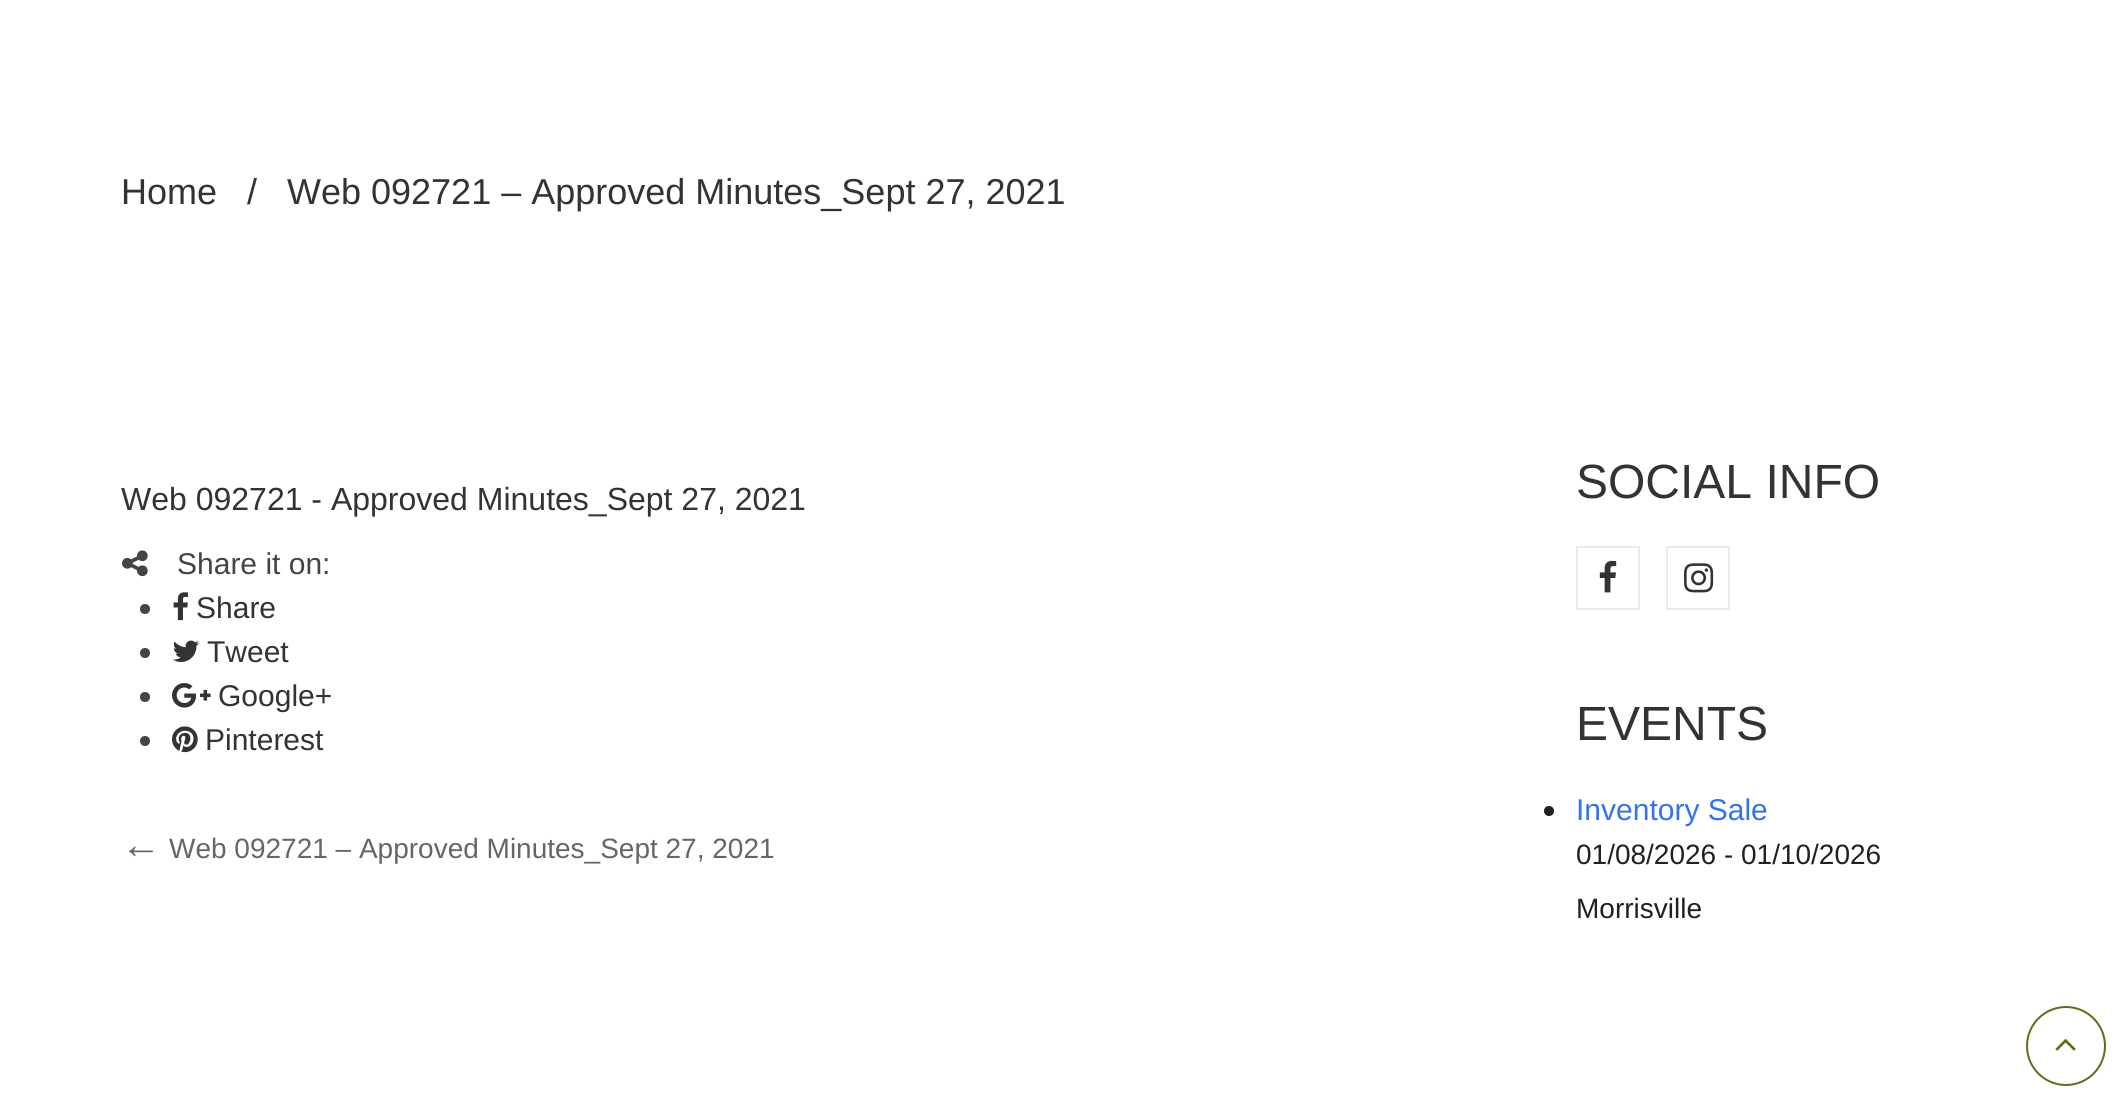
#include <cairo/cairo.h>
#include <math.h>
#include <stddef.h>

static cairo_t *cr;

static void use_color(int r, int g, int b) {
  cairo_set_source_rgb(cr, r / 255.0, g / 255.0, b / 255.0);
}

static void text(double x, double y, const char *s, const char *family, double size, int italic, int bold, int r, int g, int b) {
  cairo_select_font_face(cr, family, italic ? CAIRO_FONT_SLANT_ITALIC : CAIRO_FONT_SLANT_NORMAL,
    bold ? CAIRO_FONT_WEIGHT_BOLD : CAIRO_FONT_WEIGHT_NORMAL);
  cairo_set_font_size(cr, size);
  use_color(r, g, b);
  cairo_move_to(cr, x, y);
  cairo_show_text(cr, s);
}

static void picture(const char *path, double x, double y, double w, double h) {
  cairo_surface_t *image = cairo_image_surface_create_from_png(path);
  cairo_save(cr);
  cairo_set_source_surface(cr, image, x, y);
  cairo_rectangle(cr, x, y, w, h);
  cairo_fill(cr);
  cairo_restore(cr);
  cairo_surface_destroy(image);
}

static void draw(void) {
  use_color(255, 255, 255);
  cairo_paint(cr);
  picture("img_01.png", 122, 550, 26, 27);
  use_color(68, 68, 68);
  cairo_arc(cr, 145, 609, 5, 0, 2 * M_PI);
  cairo_fill(cr);
  picture("img_02.png", 173, 592, 16, 29);
  cairo_arc(cr, 145, 653, 5, 0, 2 * M_PI);
  cairo_fill(cr);
  picture("img_03.png", 173, 640, 26, 22);
  cairo_arc(cr, 145, 697, 5, 0, 2 * M_PI);
  cairo_fill(cr);
  picture("img_04.png", 172, 683, 39, 25);
  cairo_arc(cr, 145, 741, 5, 0, 2 * M_PI);
  cairo_fill(cr);
  picture("img_05.png", 172, 726, 26, 27);
  cairo_rectangle(cr, 1577, 547, 62, 62);
  use_color(235, 235, 235);
  cairo_stroke(cr);
  picture("img_06.png", 1599, 560, 18, 33);
  cairo_rectangle(cr, 1667, 547, 62, 62);
  cairo_stroke(cr);
  picture("img_07.png", 1684, 563, 30, 30);
  use_color(33, 33, 33);
  cairo_arc(cr, 1549, 811, 5, 0, 2 * M_PI);
  cairo_fill(cr);
  cairo_arc(cr, 2066, 1046, 39, 0, 2 * M_PI);
  use_color(92, 111, 30);
  cairo_stroke(cr);
  picture("img_08.png", 2055, 1039, 21, 12);
  text(121, 204, "Home", "Liberation Sans", 36, 0, 0, 51, 51, 51);
  text(247, 204, "/", "Liberation Sans", 36, 0, 0, 51, 51, 51);
  text(287, 204, "Web 092721 – Approved Minutes_Sept 27, 2021", "Liberation Sans", 36, 0, 0, 51, 51, 51);
  text(121, 510, "Web 092721 - Approved Minutes_Sept 27, 2021", "Liberation Sans", 32, 0, 0, 51, 51, 51);
  text(177, 574, "Share it on:", "Liberation Sans", 30, 0, 0, 68, 68, 68);
  text(196, 618, "Share", "Liberation Sans", 30, 0, 0, 51, 51, 51);
  text(207, 662, "Tweet", "Liberation Sans", 30, 0, 0, 51, 51, 51);
  text(218, 706, "Google+", "Liberation Sans", 30, 0, 0, 51, 51, 51);
  text(205, 750, "Pinterest", "Liberation Sans", 30, 0, 0, 51, 51, 51);
  text(121, 858, "←", "Liberation Sans", 40, 0, 0, 102, 102, 102);
  text(169, 858, "Web 092721 – Approved Minutes_Sept 27, 2021", "Liberation Sans", 28, 0, 0, 102, 102, 102);
  text(1576, 498, "SOCIAL INFO", "Liberation Sans", 48, 0, 0, 51, 51, 51);
  text(1576, 740, "EVENTS", "Liberation Sans", 48, 0, 0, 51, 51, 51);
  text(1576, 820, "Inventory Sale", "Liberation Sans", 30, 0, 0, 51, 114, 240);
  text(1576, 864, "01/08/2026 - 01/10/2026", "Liberation Sans", 28, 0, 0, 33, 33, 33);
  text(1576, 918, "Morrisville", "Liberation Sans", 28, 0, 0, 33, 33, 33);
}

int main(void) {
  cairo_surface_t *surface = cairo_image_surface_create(CAIRO_FORMAT_RGB24, 2121, 1109);
  cr = cairo_create(surface);
  cairo_font_options_t *options = cairo_font_options_create();
  cairo_font_options_set_hint_metrics(options, CAIRO_HINT_METRICS_OFF);
  cairo_font_options_set_hint_style(options, CAIRO_HINT_STYLE_NONE);
  cairo_set_font_options(cr, options);
  cairo_set_miter_limit(cr, 4);
  draw();
  cairo_surface_write_to_png(surface, "out.png");
  cairo_font_options_destroy(options);
  cairo_destroy(cr);
  cairo_surface_destroy(surface);
  return 0;
}
